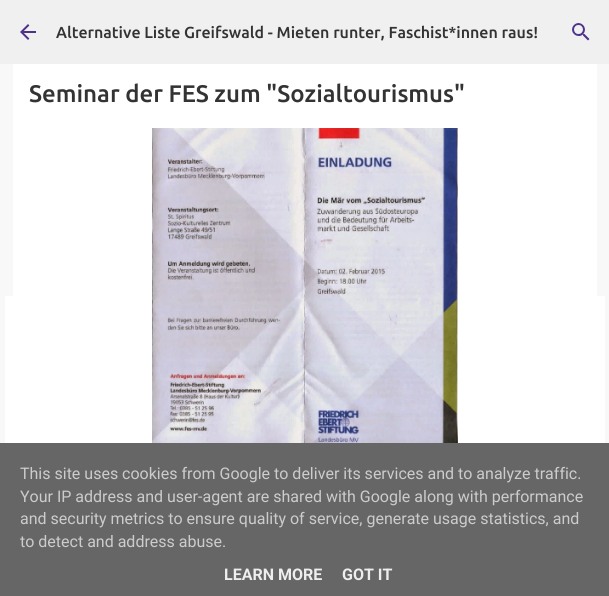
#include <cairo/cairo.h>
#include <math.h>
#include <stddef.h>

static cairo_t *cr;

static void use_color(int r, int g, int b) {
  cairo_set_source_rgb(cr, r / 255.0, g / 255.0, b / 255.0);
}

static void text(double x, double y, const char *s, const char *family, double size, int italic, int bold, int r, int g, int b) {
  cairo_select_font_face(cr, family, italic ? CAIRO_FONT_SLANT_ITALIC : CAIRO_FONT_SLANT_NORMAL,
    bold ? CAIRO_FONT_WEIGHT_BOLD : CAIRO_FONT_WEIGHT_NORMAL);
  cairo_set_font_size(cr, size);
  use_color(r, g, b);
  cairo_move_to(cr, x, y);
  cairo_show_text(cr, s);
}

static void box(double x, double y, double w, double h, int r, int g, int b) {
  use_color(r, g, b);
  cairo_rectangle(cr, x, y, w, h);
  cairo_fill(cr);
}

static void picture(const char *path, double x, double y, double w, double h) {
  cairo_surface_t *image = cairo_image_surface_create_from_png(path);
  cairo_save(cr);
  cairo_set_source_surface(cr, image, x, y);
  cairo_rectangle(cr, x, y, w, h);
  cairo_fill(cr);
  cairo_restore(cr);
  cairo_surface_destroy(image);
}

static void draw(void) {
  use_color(248, 248, 248);
  cairo_paint(cr);
  box(0, 0, 609, 64, 240, 240, 240);
  picture("img_01.png", 20, 24, 16, 16);
  picture("img_02.png", 572, 23, 18, 18);
  box(5, 296, 600, 147, 255, 255, 255);
  box(13, 64, 584, 232, 255, 255, 255);
  picture("img_03.png", 152, 128, 306, 315);
  box(0, 443, 609, 153, 102, 102, 102);
  text(56, 38, "Alternative Liste Greifswald - Mieten runter, Faschist*innen raus!", "Ubuntu Medium", 16, 0, 0, 51, 51, 51);
  text(29, 102, "Seminar der FES zum \"Sozialtourismus\"", "Ubuntu Medium", 24, 0, 0, 51, 51, 51);
  text(20, 479, "This site uses cookies from Google to deliver its services and to analyze traffic.", "Roboto", 16, 0, 0, 204, 204, 204);
  text(20, 502, "Your IP address and user-agent are shared with Google along with performance", "Roboto", 16, 0, 0, 204, 204, 204);
  text(20, 524, "and security metrics to ensure quality of service, generate usage statistics, and", "Roboto", 16, 0, 0, 204, 204, 204);
  text(20, 547, "to detect and address abuse.", "Roboto", 16, 0, 0, 204, 204, 204);
  text(224, 580, "LEARN MORE", "Roboto", 16, 0, 1, 238, 238, 238);
  text(342, 580, "GOT IT", "Roboto", 16, 0, 1, 238, 238, 238);
}

int main(void) {
  cairo_surface_t *surface = cairo_image_surface_create(CAIRO_FORMAT_RGB24, 609, 596);
  cr = cairo_create(surface);
  cairo_font_options_t *options = cairo_font_options_create();
  cairo_font_options_set_hint_metrics(options, CAIRO_HINT_METRICS_OFF);
  cairo_font_options_set_hint_style(options, CAIRO_HINT_STYLE_NONE);
  cairo_set_font_options(cr, options);
  cairo_set_miter_limit(cr, 4);
  draw();
  cairo_surface_write_to_png(surface, "out.png");
  cairo_font_options_destroy(options);
  cairo_destroy(cr);
  cairo_surface_destroy(surface);
  return 0;
}
